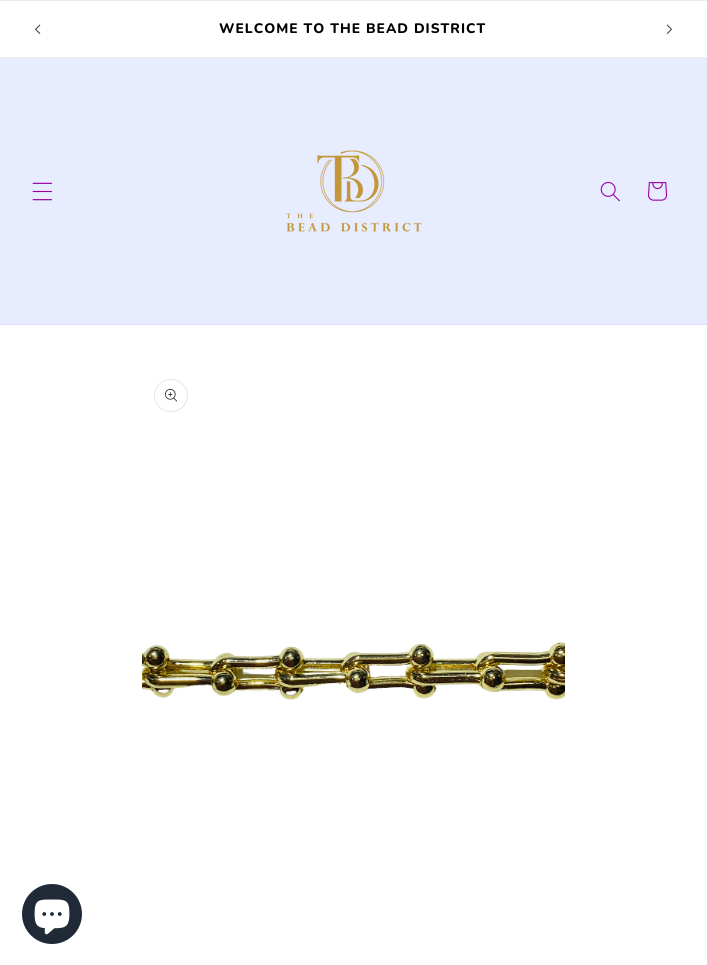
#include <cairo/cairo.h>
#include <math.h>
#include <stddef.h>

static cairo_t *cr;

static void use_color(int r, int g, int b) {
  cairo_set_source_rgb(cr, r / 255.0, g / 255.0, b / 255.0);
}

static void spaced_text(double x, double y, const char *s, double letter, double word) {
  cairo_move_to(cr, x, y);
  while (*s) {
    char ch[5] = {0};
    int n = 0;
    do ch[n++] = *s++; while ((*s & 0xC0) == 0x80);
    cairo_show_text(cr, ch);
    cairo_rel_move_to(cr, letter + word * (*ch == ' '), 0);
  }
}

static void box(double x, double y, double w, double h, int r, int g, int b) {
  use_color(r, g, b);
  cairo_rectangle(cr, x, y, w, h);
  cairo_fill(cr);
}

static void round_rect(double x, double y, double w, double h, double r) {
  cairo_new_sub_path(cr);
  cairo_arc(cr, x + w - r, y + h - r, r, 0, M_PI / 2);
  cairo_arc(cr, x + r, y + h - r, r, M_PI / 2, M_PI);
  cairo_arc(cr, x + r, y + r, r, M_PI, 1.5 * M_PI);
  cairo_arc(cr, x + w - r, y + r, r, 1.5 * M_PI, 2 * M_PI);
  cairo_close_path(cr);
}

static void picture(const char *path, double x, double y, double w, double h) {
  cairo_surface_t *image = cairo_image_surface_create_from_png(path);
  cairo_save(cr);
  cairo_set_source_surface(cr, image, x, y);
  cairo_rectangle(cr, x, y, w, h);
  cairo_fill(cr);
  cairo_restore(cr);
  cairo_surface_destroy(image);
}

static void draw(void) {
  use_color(255, 255, 255);
  cairo_paint(cr);
  box(0, 0, 707, 1, 235, 235, 235);
  box(0, 57, 707, 1, 235, 235, 235);
  picture("img_01.png", 35, 24, 6, 10);
  picture("img_02.png", 666, 24, 6, 10);
  box(0, 58, 707, 266, 231, 236, 255);
  box(0, 324, 707, 1, 225, 217, 248);
  picture("img_03.png", 32, 182, 20, 19);
  picture("img_04.png", 286, 150, 136, 82);
  picture("img_05.png", 600, 181, 20, 21);
  picture("img_06.png", 648, 182, 20, 19);
  round_rect(154.5, 379.5, 33, 32, 16);
  use_color(230, 230, 230);
  cairo_set_line_width(cr, 1);
  cairo_stroke(cr);
  picture("img_07.png", 165, 389, 12, 13);
  picture("img_08.png", 142, 642, 423, 58);
  use_color(32, 42, 54);
  cairo_arc(cr, 52, 914, 30, 0, 2 * M_PI);
  cairo_fill(cr);
  picture("img_09.png", 34, 899, 36, 36);
  cairo_select_font_face(cr, "Nunito ExtraBold", CAIRO_FONT_SLANT_NORMAL, CAIRO_FONT_WEIGHT_NORMAL);
  cairo_set_font_size(cr, 13.75);
  use_color(0, 0, 0);
  spaced_text(219, 33, "WELCOME TO THE BEAD DISTRICT", 1.05, 0);
}

int main(void) {
  cairo_surface_t *surface = cairo_image_surface_create(CAIRO_FORMAT_RGB24, 707, 965);
  cr = cairo_create(surface);
  cairo_font_options_t *options = cairo_font_options_create();
  cairo_font_options_set_hint_metrics(options, CAIRO_HINT_METRICS_OFF);
  cairo_font_options_set_hint_style(options, CAIRO_HINT_STYLE_NONE);
  cairo_set_font_options(cr, options);
  cairo_set_miter_limit(cr, 4);
  draw();
  cairo_surface_write_to_png(surface, "out.png");
  cairo_font_options_destroy(options);
  cairo_destroy(cr);
  cairo_surface_destroy(surface);
  return 0;
}
